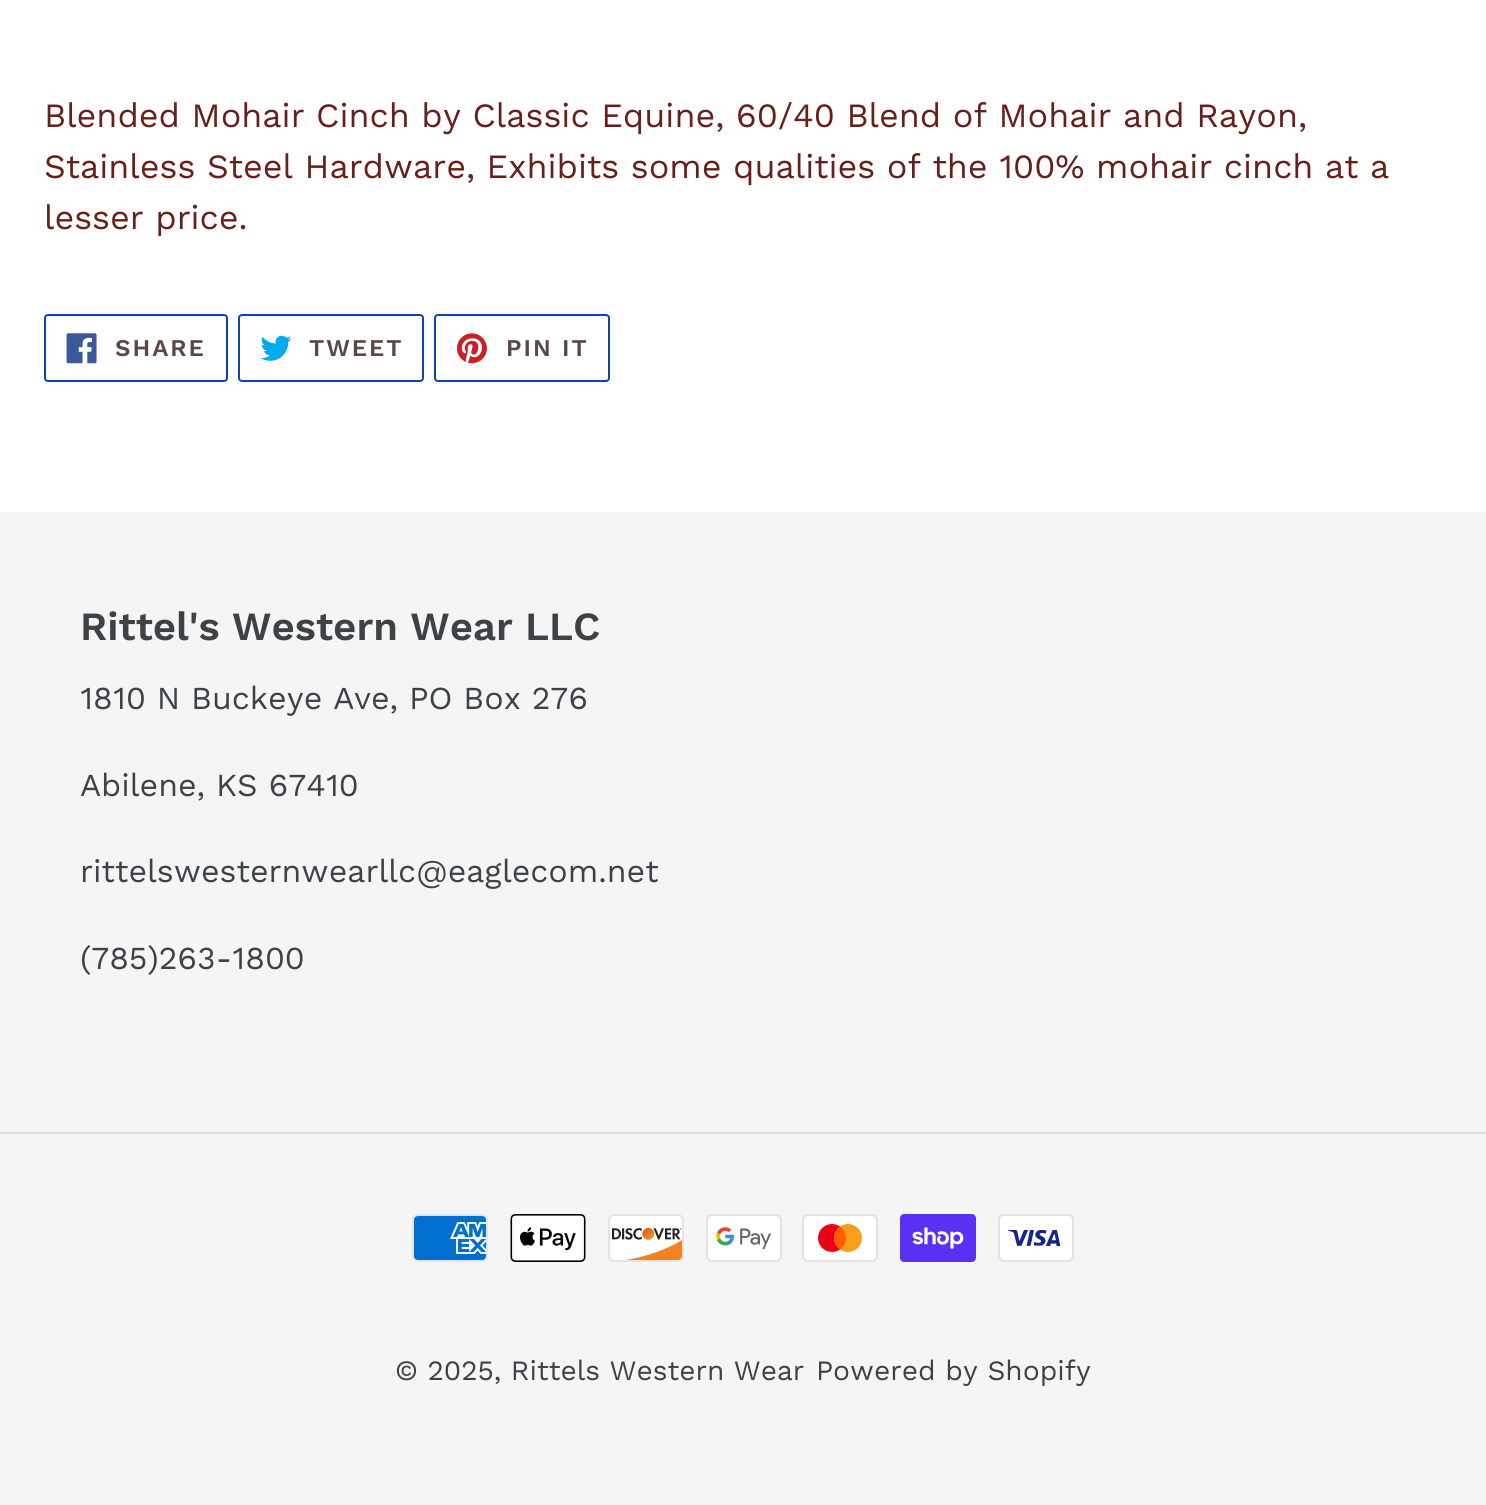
#include <cairo/cairo.h>
#include <math.h>
#include <stddef.h>

static cairo_t *cr;

static void use_color(int r, int g, int b) {
  cairo_set_source_rgb(cr, r / 255.0, g / 255.0, b / 255.0);
}

static void text(double x, double y, const char *s, const char *family, double size, int italic, int bold, int r, int g, int b) {
  cairo_select_font_face(cr, family, italic ? CAIRO_FONT_SLANT_ITALIC : CAIRO_FONT_SLANT_NORMAL,
    bold ? CAIRO_FONT_WEIGHT_BOLD : CAIRO_FONT_WEIGHT_NORMAL);
  cairo_set_font_size(cr, size);
  use_color(r, g, b);
  cairo_move_to(cr, x, y);
  cairo_show_text(cr, s);
}

static void spaced_text(double x, double y, const char *s, double letter, double word) {
  cairo_move_to(cr, x, y);
  while (*s) {
    char ch[5] = {0};
    int n = 0;
    do ch[n++] = *s++; while ((*s & 0xC0) == 0x80);
    cairo_show_text(cr, ch);
    cairo_rel_move_to(cr, letter + word * (*ch == ' '), 0);
  }
}

static void box(double x, double y, double w, double h, int r, int g, int b) {
  use_color(r, g, b);
  cairo_rectangle(cr, x, y, w, h);
  cairo_fill(cr);
}

static void round_rect(double x, double y, double w, double h, double r) {
  cairo_new_sub_path(cr);
  cairo_arc(cr, x + w - r, y + h - r, r, 0, M_PI / 2);
  cairo_arc(cr, x + r, y + h - r, r, M_PI / 2, M_PI);
  cairo_arc(cr, x + r, y + r, r, M_PI, 1.5 * M_PI);
  cairo_arc(cr, x + w - r, y + r, r, 1.5 * M_PI, 2 * M_PI);
  cairo_close_path(cr);
}

static void picture(const char *path, double x, double y, double w, double h) {
  cairo_surface_t *image = cairo_image_surface_create_from_png(path);
  cairo_save(cr);
  cairo_set_source_surface(cr, image, x, y);
  cairo_rectangle(cr, x, y, w, h);
  cairo_fill(cr);
  cairo_restore(cr);
  cairo_surface_destroy(image);
}

static void draw(void) {
  use_color(255, 255, 255);
  cairo_paint(cr);
  round_rect(45, 315, 182, 66, 3);
  use_color(10, 67, 181);
  cairo_stroke(cr);
  picture("img_01.png", 66, 333, 31, 31);
  round_rect(239, 315, 184, 66, 3);
  cairo_stroke(cr);
  picture("img_02.png", 260, 335, 32, 26);
  round_rect(435, 315, 174, 66, 3);
  cairo_stroke(cr);
  picture("img_03.png", 456, 333, 31, 31);
  box(0, 512, 1486, 993, 245, 245, 245);
  box(0, 1132, 1486, 2, 220, 220, 220);
  picture("img_04.png", 412, 1214, 76, 48);
  picture("img_05.png", 510, 1214, 76, 48);
  picture("img_06.png", 608, 1214, 76, 48);
  picture("img_07.png", 706, 1214, 76, 48);
  picture("img_08.png", 802, 1214, 76, 48);
  picture("img_09.png", 900, 1214, 76, 48);
  picture("img_10.png", 998, 1214, 76, 48);
  text(44, 127, "Blended Mohair Cinch by Classic Equine, 60/40 Blend of Mohair and Rayon,", "Work Sans", 34, 0, 0, 104, 31, 25);
  text(44, 178, "Stainless Steel Hardware, Exhibits some qualities of the 100% mohair cinch at a", "Work Sans", 34, 0, 0, 104, 31, 25);
  text(44, 229, "lesser price.", "Work Sans", 34, 0, 0, 104, 31, 25);
  cairo_select_font_face(cr, "Work Sans SemiBold", CAIRO_FONT_SLANT_NORMAL, CAIRO_FONT_WEIGHT_NORMAL);
  cairo_set_font_size(cr, 24);
  use_color(91, 72, 70);
  spaced_text(115, 356, "SHARE", 2, 0);
  spaced_text(309, 356, "TWEET", 2, 0);
  spaced_text(506, 356, "PIN IT", 2, 0);
  text(80, 640, "Rittel's Western Wear LLC", "Work Sans SemiBold", 40, 0, 0, 61, 66, 70);
  text(80, 709, "1810 N Buckeye Ave, PO Box 276", "Work Sans", 32, 0, 0, 61, 66, 70);
  text(80, 796, "Abilene, KS 67410", "Work Sans", 32, 0, 0, 61, 66, 70);
  text(80, 882, "rittelswesternwearllc@eaglecom.net", "Work Sans", 32, 0, 0, 61, 66, 70);
  text(80, 969, "(785)263-1800", "Work Sans", 32, 0, 0, 61, 66, 70);
  text(395, 1380, "© 2025, Rittels Western Wear", "Work Sans", 28, 0, 0, 61, 66, 70);
  text(816, 1380, "Powered by Shopify", "Work Sans", 28, 0, 0, 61, 66, 70);
}

int main(void) {
  cairo_surface_t *surface = cairo_image_surface_create(CAIRO_FORMAT_RGB24, 1486, 1505);
  cr = cairo_create(surface);
  cairo_font_options_t *options = cairo_font_options_create();
  cairo_font_options_set_hint_metrics(options, CAIRO_HINT_METRICS_OFF);
  cairo_font_options_set_hint_style(options, CAIRO_HINT_STYLE_NONE);
  cairo_set_font_options(cr, options);
  cairo_set_miter_limit(cr, 4);
  draw();
  cairo_surface_write_to_png(surface, "out.png");
  cairo_font_options_destroy(options);
  cairo_destroy(cr);
  cairo_surface_destroy(surface);
  return 0;
}
